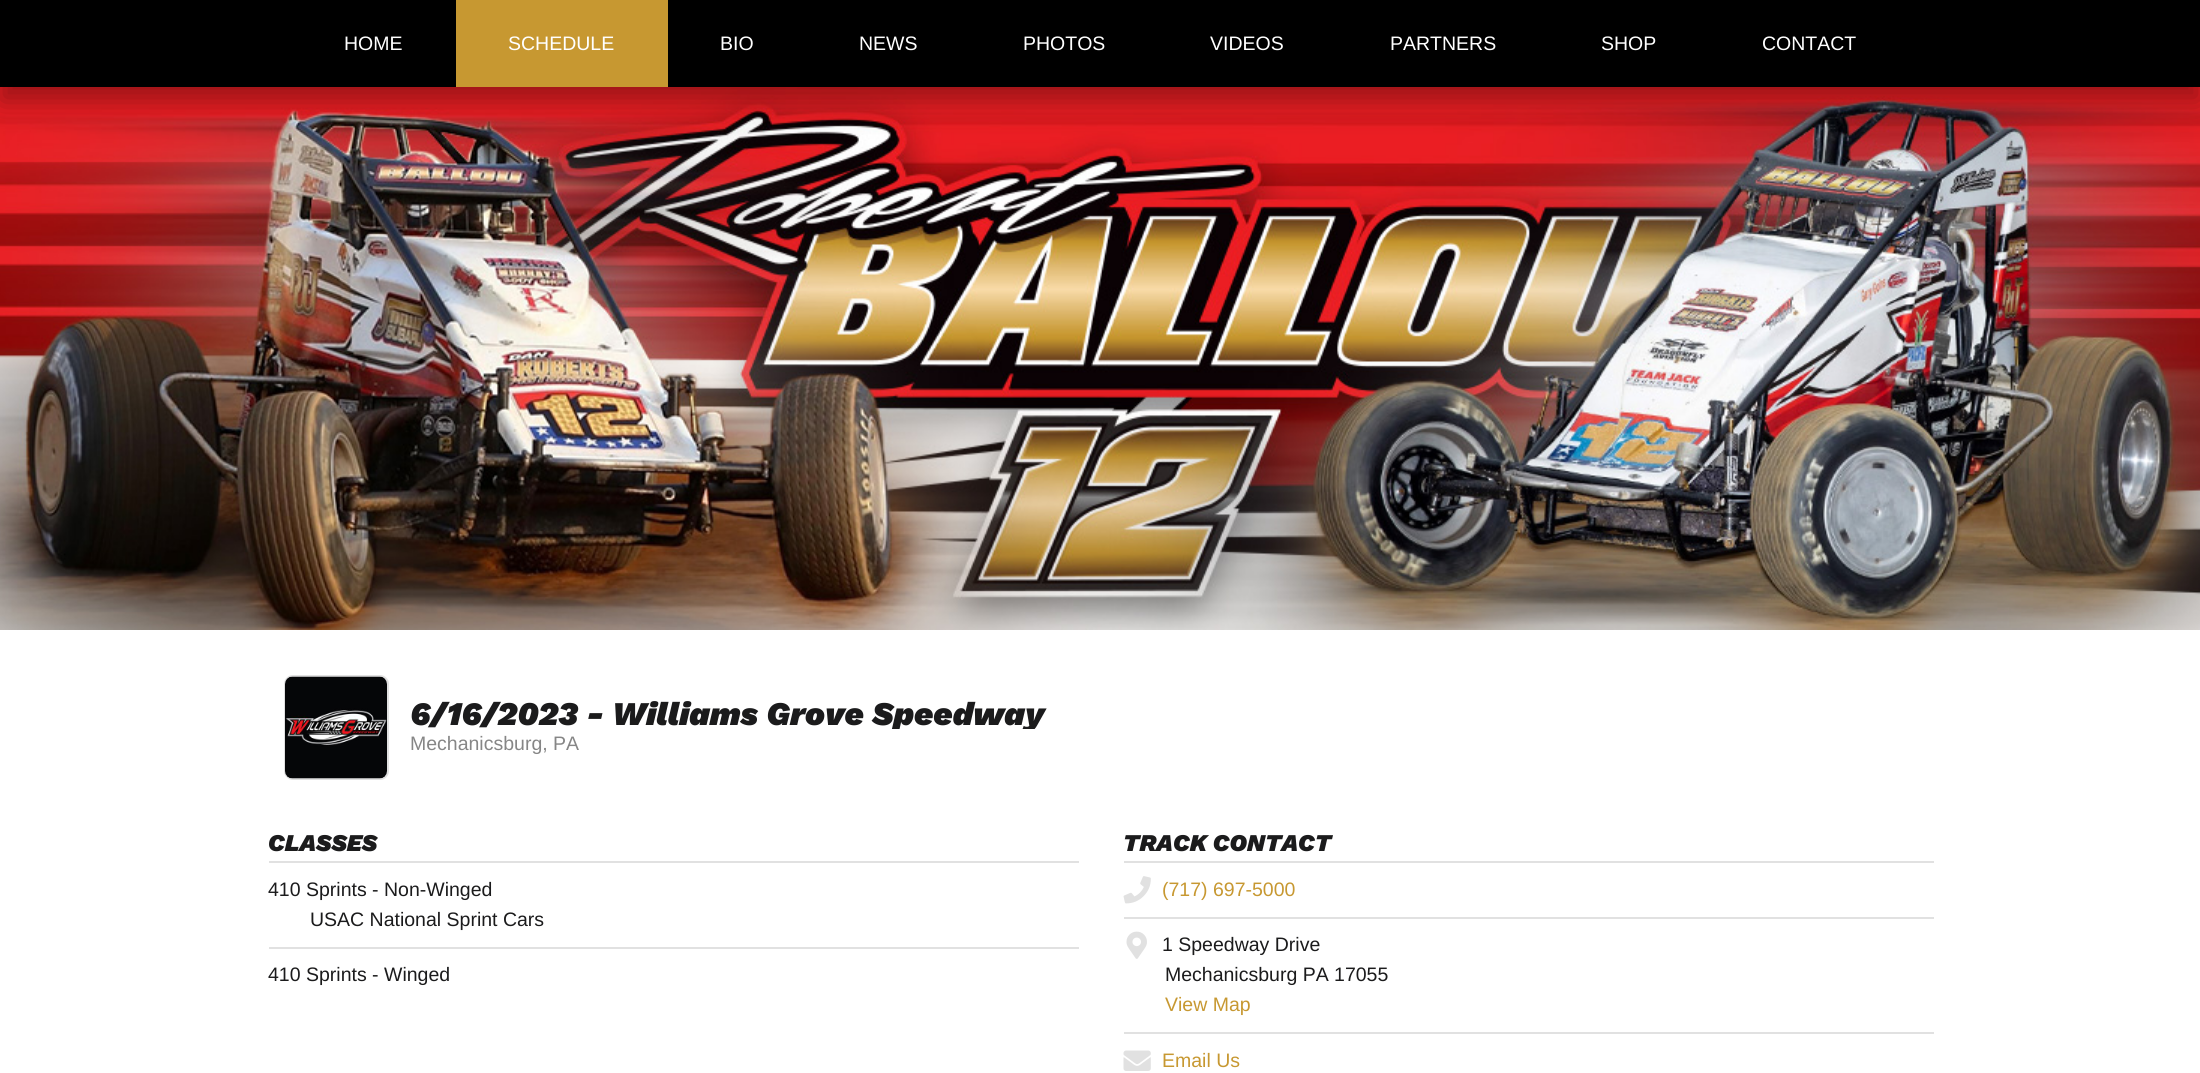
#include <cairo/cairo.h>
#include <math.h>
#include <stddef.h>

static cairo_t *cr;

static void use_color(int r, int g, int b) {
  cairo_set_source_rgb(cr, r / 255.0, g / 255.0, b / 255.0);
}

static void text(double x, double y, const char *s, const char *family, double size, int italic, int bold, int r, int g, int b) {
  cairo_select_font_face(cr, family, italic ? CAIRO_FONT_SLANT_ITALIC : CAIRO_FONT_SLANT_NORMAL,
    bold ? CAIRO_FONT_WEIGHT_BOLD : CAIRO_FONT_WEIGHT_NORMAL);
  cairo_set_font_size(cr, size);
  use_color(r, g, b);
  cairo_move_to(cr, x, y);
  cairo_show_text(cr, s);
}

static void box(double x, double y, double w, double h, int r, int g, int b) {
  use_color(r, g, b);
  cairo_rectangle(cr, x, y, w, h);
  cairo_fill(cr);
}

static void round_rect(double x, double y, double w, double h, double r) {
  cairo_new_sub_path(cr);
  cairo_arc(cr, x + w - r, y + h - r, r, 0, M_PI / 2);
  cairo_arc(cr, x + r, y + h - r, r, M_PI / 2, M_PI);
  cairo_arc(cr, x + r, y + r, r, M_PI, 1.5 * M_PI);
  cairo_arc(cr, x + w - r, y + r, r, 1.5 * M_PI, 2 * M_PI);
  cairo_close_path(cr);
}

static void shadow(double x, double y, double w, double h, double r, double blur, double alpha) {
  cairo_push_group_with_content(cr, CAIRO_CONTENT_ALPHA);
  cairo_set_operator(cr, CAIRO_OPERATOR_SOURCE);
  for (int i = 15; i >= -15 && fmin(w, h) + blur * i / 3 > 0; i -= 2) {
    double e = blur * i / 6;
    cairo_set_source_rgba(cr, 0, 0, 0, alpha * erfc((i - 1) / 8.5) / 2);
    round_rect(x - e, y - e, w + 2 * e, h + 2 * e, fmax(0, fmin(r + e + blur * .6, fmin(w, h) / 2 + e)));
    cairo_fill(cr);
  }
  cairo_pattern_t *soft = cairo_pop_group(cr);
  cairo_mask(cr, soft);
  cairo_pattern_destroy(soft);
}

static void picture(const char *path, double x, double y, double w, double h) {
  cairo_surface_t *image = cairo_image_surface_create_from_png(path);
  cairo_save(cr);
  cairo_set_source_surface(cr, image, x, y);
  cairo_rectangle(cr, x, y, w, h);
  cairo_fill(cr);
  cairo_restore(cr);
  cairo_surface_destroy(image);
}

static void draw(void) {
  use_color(255, 255, 255);
  cairo_paint(cr);
  picture("img_01.png", 0, 87, 2200, 543);
  use_color(0, 0, 0);
  shadow(0, 15, 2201, 87, 0, 15, 0.35);
  box(0, 0, 2200, 87, 0, 0, 0);
  box(456, 0, 212, 87, 199, 152, 49);
  round_rect(285, 676, 103, 103, 8);
  use_color(225, 225, 225);
  cairo_stroke(cr);
  picture("img_02.png", 285, 676, 102, 103);
  box(269, 861, 810, 2, 225, 225, 225);
  box(269, 947, 810, 2, 225, 225, 225);
  box(1124, 861, 810, 2, 225, 225, 225);
  picture("img_03.png", 1123, 876, 28, 28);
  box(1124, 917, 810, 2, 225, 225, 225);
  picture("img_04.png", 1126, 931, 21, 28);
  box(1124, 1032, 810, 2, 225, 225, 225);
  picture("img_05.png", 1123, 1050, 28, 21);
  text(344, 50, "HOME", "Liberation Sans", 19.5, 0, 0, 255, 255, 255);
  text(508, 50, "SCHEDULE", "Liberation Sans", 19.5, 0, 0, 255, 255, 255);
  text(720, 50, "BIO", "Liberation Sans", 19.5, 0, 0, 255, 255, 255);
  text(859, 50, "NEWS", "Liberation Sans", 19.5, 0, 0, 255, 255, 255);
  text(1023, 50, "PHOTOS", "Liberation Sans", 19.5, 0, 0, 255, 255, 255);
  text(1210, 50, "VIDEOS", "Liberation Sans", 19.5, 0, 0, 255, 255, 255);
  text(1390, 50, "PARTNERS", "Liberation Sans", 19.5, 0, 0, 255, 255, 255);
  text(1601, 50, "SHOP", "Liberation Sans", 19.5, 0, 0, 255, 255, 255);
  text(1762, 50, "CONTACT", "Liberation Sans", 19.5, 0, 0, 255, 255, 255);
  cairo_save(cr);
  cairo_rectangle(cr, 411, 696, 1508, 33);
  cairo_clip(cr);
  text(410, 725, "6/16/2023 - Williams Grove Speedway", "Work Sans Black", 33.1, 1, 0, 27, 27, 28);
  cairo_restore(cr);
  text(410, 750, "Mechanicsburg, PA", "Liberation Sans", 19.5, 0, 0, 134, 134, 134);
  text(268, 851, "CLASSES", "Work Sans Black", 24, 1, 0, 27, 27, 28);
  text(268, 896, "410 Sprints - Non-Winged", "Liberation Sans", 19.5, 0, 0, 27, 27, 28);
  text(310, 926, "USAC National Sprint Cars", "Liberation Sans", 19.5, 0, 0, 27, 27, 28);
  text(268, 981, "410 Sprints - Winged", "Liberation Sans", 19.5, 0, 0, 27, 27, 28);
  text(1123, 851, "TRACK CONTACT", "Work Sans Black", 24, 1, 0, 27, 27, 28);
  text(1162, 896, "(717) 697-5000", "Liberation Sans", 19.5, 0, 0, 199, 152, 49);
  text(1162, 951, "1 Speedway Drive", "Liberation Sans", 19.5, 0, 0, 27, 27, 28);
  text(1165, 981, "Mechanicsburg PA 17055", "Liberation Sans", 19.5, 0, 0, 27, 27, 28);
  text(1165, 1011, "View Map", "Liberation Sans", 19.5, 0, 0, 199, 152, 49);
  text(1162, 1067, "Email Us", "Liberation Sans", 19.5, 0, 0, 199, 152, 49);
}

int main(void) {
  cairo_surface_t *surface = cairo_image_surface_create(CAIRO_FORMAT_RGB24, 2200, 1073);
  cr = cairo_create(surface);
  cairo_font_options_t *options = cairo_font_options_create();
  cairo_font_options_set_hint_metrics(options, CAIRO_HINT_METRICS_OFF);
  cairo_font_options_set_hint_style(options, CAIRO_HINT_STYLE_NONE);
  cairo_set_font_options(cr, options);
  cairo_set_miter_limit(cr, 4);
  draw();
  cairo_surface_write_to_png(surface, "out.png");
  cairo_font_options_destroy(options);
  cairo_destroy(cr);
  cairo_surface_destroy(surface);
  return 0;
}
